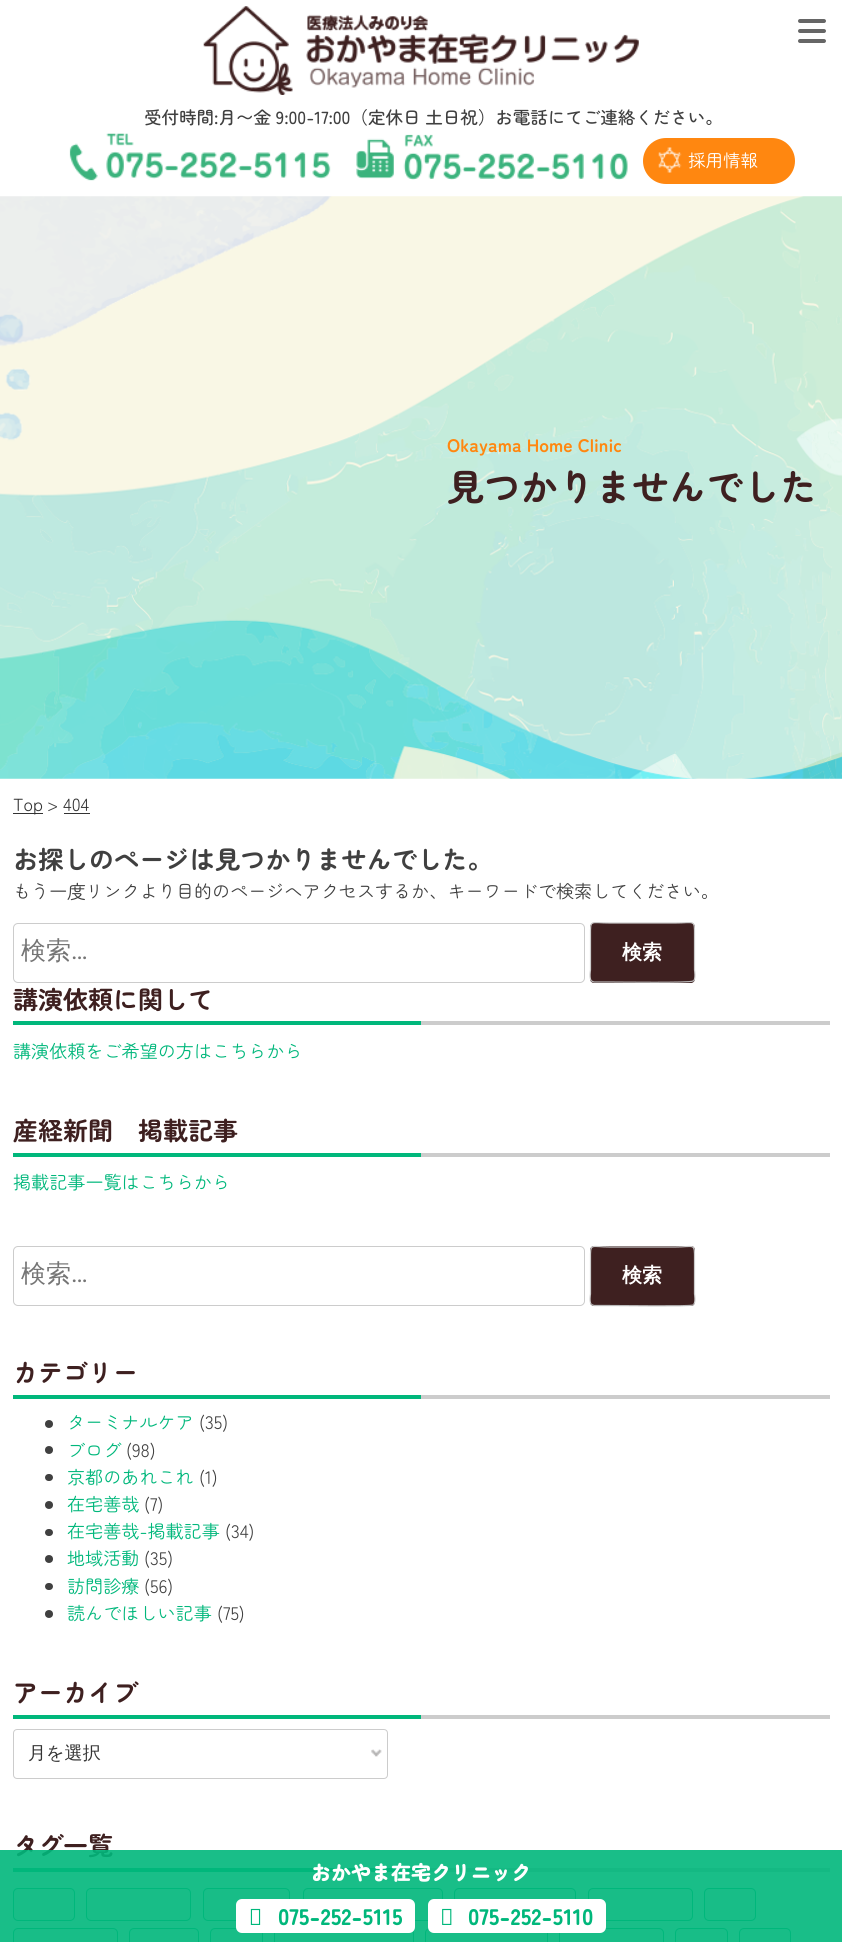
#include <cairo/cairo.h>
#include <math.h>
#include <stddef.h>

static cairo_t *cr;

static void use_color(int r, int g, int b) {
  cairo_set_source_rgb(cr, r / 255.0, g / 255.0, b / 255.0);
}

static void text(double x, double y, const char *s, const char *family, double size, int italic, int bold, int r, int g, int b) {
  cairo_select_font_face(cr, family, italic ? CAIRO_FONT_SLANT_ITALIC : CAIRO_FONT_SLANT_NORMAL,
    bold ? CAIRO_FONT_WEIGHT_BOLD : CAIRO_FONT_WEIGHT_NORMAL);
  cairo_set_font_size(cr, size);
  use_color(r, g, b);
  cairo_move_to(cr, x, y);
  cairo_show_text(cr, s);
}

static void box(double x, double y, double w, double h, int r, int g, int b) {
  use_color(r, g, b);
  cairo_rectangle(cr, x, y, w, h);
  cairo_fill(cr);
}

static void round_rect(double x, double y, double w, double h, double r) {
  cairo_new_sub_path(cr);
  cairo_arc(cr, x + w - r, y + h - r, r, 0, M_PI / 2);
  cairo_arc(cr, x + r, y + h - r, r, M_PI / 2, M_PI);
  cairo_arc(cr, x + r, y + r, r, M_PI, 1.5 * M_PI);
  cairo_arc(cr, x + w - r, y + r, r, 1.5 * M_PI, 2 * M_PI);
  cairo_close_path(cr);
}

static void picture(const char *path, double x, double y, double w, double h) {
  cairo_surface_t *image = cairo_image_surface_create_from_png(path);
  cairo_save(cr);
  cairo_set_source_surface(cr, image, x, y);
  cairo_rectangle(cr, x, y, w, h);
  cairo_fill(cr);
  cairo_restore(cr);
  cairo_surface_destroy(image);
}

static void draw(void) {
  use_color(255, 255, 255);
  cairo_paint(cr);
  use_color(102, 102, 102);
  round_rect(798, 19, 28, 4, 2);
  cairo_fill(cr);
  round_rect(798, 29, 28, 4, 2);
  cairo_fill(cr);
  round_rect(798, 39, 28, 4, 2);
  cairo_fill(cr);
  picture("img_01.png", 203, 6, 436, 89);
  picture("img_02.png", 69, 133, 262, 48);
  picture("img_03.png", 356, 134, 272, 46);
  use_color(255, 135, 16);
  round_rect(643, 138, 152, 46, 23);
  cairo_fill(cr);
  picture("img_04.png", 658, 147, 24, 26);
  picture("img_05.png", 0, 196, 842, 583);
  box(13, 813, 30, 1, 51, 51, 51);
  box(64, 813, 26, 1, 51, 51, 51);
  round_rect(13.5, 923.5, 571, 59, 4.5);
  use_color(204, 204, 204);
  cairo_set_line_width(cr, 1);
  cairo_stroke(cr);
  use_color(62, 32, 32);
  round_rect(590, 923, 105, 60, 4);
  cairo_fill(cr);
  cairo_new_path(cr);
  cairo_move_to(cr, 693.5, 981);
  cairo_line_to(cr, 693, 981);
  cairo_curve_to(cr, 691, 983, 619, 982, 610, 982);
  cairo_line_to(cr, 594, 982);
  cairo_line_to(cr, 591.5, 981);
  use_color(187, 187, 187);
  cairo_set_line_width(cr, 1.2);
  cairo_stroke(cr);
  cairo_new_path(cr);
  cairo_move_to(cr, 591.5, 981);
  cairo_curve_to(cr, 589, 978.5, 590.5, 970, 590.5, 970);
  cairo_line_to(cr, 590.5, 935);
  cairo_curve_to(cr, 590.5, 919, 590, 923, 610, 923);
  cairo_line_to(cr, 675, 923);
  cairo_curve_to(cr, 695, 923, 694.5, 919, 694.5, 935);
  cairo_line_to(cr, 694.5, 970);
  cairo_curve_to(cr, 694.5, 970, 696, 978.5, 693.5, 981);
  use_color(204, 204, 204);
  cairo_stroke(cr);
  box(421, 1021, 409, 4, 204, 204, 204);
  box(13, 1021, 408, 4, 0, 183, 123);
  box(421, 1153, 409, 4, 204, 204, 204);
  box(13, 1153, 408, 4, 0, 183, 123);
  round_rect(13.5, 1246.5, 571, 59, 4.5);
  use_color(204, 204, 204);
  cairo_set_line_width(cr, 1);
  cairo_stroke(cr);
  use_color(62, 32, 32);
  round_rect(590, 1246, 105, 60, 4);
  cairo_fill(cr);
  cairo_new_path(cr);
  cairo_move_to(cr, 693.5, 1304.5);
  cairo_line_to(cr, 693, 1305);
  cairo_curve_to(cr, 691, 1306.5, 619, 1305.5, 610, 1305.5);
  cairo_line_to(cr, 594, 1305.5);
  cairo_line_to(cr, 591.5, 1304.5);
  use_color(187, 187, 187);
  cairo_set_line_width(cr, 1.2);
  cairo_stroke(cr);
  cairo_new_path(cr);
  cairo_move_to(cr, 591.5, 1304.5);
  cairo_curve_to(cr, 589, 1302.5, 590.5, 1294, 590.5, 1294);
  cairo_line_to(cr, 590.5, 1259);
  cairo_curve_to(cr, 590.5, 1242.5, 590, 1247, 610, 1247);
  cairo_line_to(cr, 675, 1247);
  cairo_curve_to(cr, 695, 1247, 694.5, 1242.5, 694.5, 1259);
  cairo_line_to(cr, 694.5, 1294);
  cairo_curve_to(cr, 694.5, 1294, 696, 1302.5, 693.5, 1304.5);
  use_color(204, 204, 204);
  cairo_stroke(cr);
  box(421, 1395, 409, 4, 204, 204, 204);
  box(13, 1395, 408, 4, 0, 183, 123);
  use_color(64, 64, 64);
  cairo_arc(cr, 49, 1424, 4, 0, 2 * M_PI);
  cairo_fill(cr);
  cairo_arc(cr, 49, 1450, 4, 0, 2 * M_PI);
  cairo_fill(cr);
  round_rect(45, 1474, 8, 7, 3.5);
  cairo_fill(cr);
  cairo_arc(cr, 49, 1505, 4, 0, 2 * M_PI);
  cairo_fill(cr);
  round_rect(45, 1529, 8, 7, 3.5);
  cairo_fill(cr);
  cairo_arc(cr, 49, 1559, 4, 0, 2 * M_PI);
  cairo_fill(cr);
  round_rect(45, 1583, 8, 7, 3.5);
  cairo_fill(cr);
  cairo_arc(cr, 49, 1614, 4, 0, 2 * M_PI);
  cairo_fill(cr);
  box(421, 1715, 409, 4, 204, 204, 204);
  box(13, 1715, 408, 4, 0, 183, 123);
  picture("img_06.png", 371, 1749, 11, 8);
  round_rect(13.5, 1729.5, 374, 49, 3.5);
  use_color(204, 204, 204);
  cairo_set_line_width(cr, 1);
  cairo_stroke(cr);
  box(421, 1868, 409, 4, 204, 204, 204);
  box(13, 1868, 408, 4, 0, 183, 123);
  use_color(240, 240, 240);
  round_rect(13.5, 1888.5, 61, 32, 4.5);
  cairo_fill_preserve(cr);
  use_color(0, 183, 123);
  cairo_stroke(cr);
  use_color(240, 240, 240);
  round_rect(86.5, 1888.5, 104, 32, 4.5);
  cairo_fill_preserve(cr);
  use_color(0, 183, 123);
  cairo_stroke(cr);
  use_color(240, 240, 240);
  round_rect(203.5, 1888.5, 86, 32, 4.5);
  cairo_fill_preserve(cr);
  use_color(0, 183, 123);
  cairo_stroke(cr);
  use_color(240, 240, 240);
  round_rect(303.5, 1888.5, 139, 32, 4.5);
  cairo_fill_preserve(cr);
  use_color(0, 183, 123);
  cairo_stroke(cr);
  use_color(240, 240, 240);
  round_rect(454.5, 1888.5, 121, 32, 4.5);
  cairo_fill_preserve(cr);
  use_color(0, 183, 123);
  cairo_stroke(cr);
  use_color(240, 240, 240);
  round_rect(588.5, 1888.5, 104, 32, 4.5);
  cairo_fill_preserve(cr);
  use_color(0, 183, 123);
  cairo_stroke(cr);
  use_color(240, 240, 240);
  round_rect(704.5, 1888.5, 51, 32, 4.5);
  cairo_fill_preserve(cr);
  use_color(0, 183, 123);
  cairo_stroke(cr);
  use_color(240, 240, 240);
  round_rect(13.5, 1928.5, 104, 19, 4.5);
  cairo_fill_preserve(cr);
  use_color(0, 183, 123);
  cairo_stroke(cr);
  use_color(240, 240, 240);
  round_rect(129.5, 1928.5, 69, 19, 4.5);
  cairo_fill_preserve(cr);
  use_color(0, 183, 123);
  cairo_stroke(cr);
  use_color(240, 240, 240);
  round_rect(210.5, 1928.5, 52, 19, 4.5);
  cairo_fill_preserve(cr);
  use_color(0, 183, 123);
  cairo_stroke(cr);
  use_color(240, 240, 240);
  round_rect(274.5, 1928.5, 139, 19, 4.5);
  cairo_fill_preserve(cr);
  use_color(0, 183, 123);
  cairo_stroke(cr);
  use_color(240, 240, 240);
  round_rect(425.5, 1928.5, 122, 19, 4.5);
  cairo_fill_preserve(cr);
  use_color(0, 183, 123);
  cairo_stroke(cr);
  use_color(240, 240, 240);
  round_rect(559.5, 1928.5, 104, 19, 4.5);
  cairo_fill_preserve(cr);
  use_color(0, 183, 123);
  cairo_stroke(cr);
  use_color(240, 240, 240);
  round_rect(675.5, 1928.5, 52, 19, 4.5);
  cairo_fill_preserve(cr);
  use_color(0, 183, 123);
  cairo_stroke(cr);
  use_color(240, 240, 240);
  round_rect(739.5, 1928.5, 51, 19, 4.5);
  cairo_fill_preserve(cr);
  use_color(0, 183, 123);
  cairo_stroke(cr);
  text(144, 124, "受付時間:月〜金 9:00-17:00（定休日 土日祝）お電話にてご連絡ください。", "Zen Maru Gothic Medium", 17.5, 0, 0, 64, 64, 64);
  text(688, 167, "採用情報", "Zen Maru Gothic", 17.5, 0, 0, 255, 255, 255);
  text(447, 452, "Okayama Home Clinic", "Zen Maru Gothic", 18.1, 0, 1, 255, 135, 16);
  text(447, 501, "見つかりませんでした", "Zen Maru Gothic", 37, 0, 1, 62, 32, 32);
  text(13, 811, "Top", "Zen Maru Gothic", 17.5, 0, 0, 51, 51, 51);
  text(47, 811, ">", "Zen Maru Gothic", 17.5, 0, 0, 64, 64, 64);
  text(63, 811, "404", "Zen Maru Gothic", 17.5, 0, 0, 51, 51, 51);
  text(13, 869, "お探しのページは見つかりませんでした。", "Zen Maru Gothic", 25.25, 0, 1, 64, 64, 64);
  text(13, 898, "もう一度リンクより目的のページへアクセスするか、キーワードで検索してください。", "Zen Maru Gothic", 18.1, 0, 0, 64, 64, 64);
  text(21, 959, "検索", "WenQuanYi Zen Hei Medium", 25, 0, 0, 117, 117, 117);
  text(71, 959, "…", "Roboto", 25, 0, 0, 117, 117, 117);
  text(622, 959, "検索", "WenQuanYi Zen Hei", 20, 0, 1, 255, 255, 255);
  text(13, 1009, "講演依頼に関して", "Zen Maru Gothic", 25, 0, 1, 62, 32, 32);
  text(13, 1058, "講演依頼をご希望の方はこちらから", "Zen Maru Gothic", 18.1, 0, 0, 0, 183, 123);
  text(13, 1140, "産経新聞　掲載記事", "Zen Maru Gothic", 25, 0, 1, 62, 32, 32);
  text(13, 1189, "掲載記事一覧はこちらから", "Zen Maru Gothic", 18.1, 0, 0, 0, 183, 123);
  text(21, 1282, "検索", "WenQuanYi Zen Hei Medium", 25, 0, 0, 117, 117, 117);
  text(71, 1282, "…", "Roboto", 25, 0, 0, 117, 117, 117);
  text(622, 1282, "検索", "WenQuanYi Zen Hei", 20, 0, 1, 255, 255, 255);
  text(13, 1382, "カテゴリー", "Zen Maru Gothic", 25, 0, 1, 62, 32, 32);
  text(67, 1429, "ターミナルケア", "Zen Maru Gothic", 18.1, 0, 0, 0, 183, 123);
  text(199, 1429, "(35)", "Zen Maru Gothic", 18.1, 0, 0, 64, 64, 64);
  text(67, 1457, "ブログ", "Zen Maru Gothic", 18.1, 0, 0, 0, 183, 123);
  text(126, 1457, "(98)", "Zen Maru Gothic", 18.1, 0, 0, 64, 64, 64);
  text(67, 1484, "京都のあれこれ", "Zen Maru Gothic", 18.1, 0, 0, 0, 183, 123);
  text(199, 1484, "(1)", "Zen Maru Gothic", 18.1, 0, 0, 64, 64, 64);
  text(67, 1511, "在宅善哉", "Zen Maru Gothic", 18.1, 0, 0, 0, 183, 123);
  text(144, 1511, "(7)", "Zen Maru Gothic", 18.1, 0, 0, 64, 64, 64);
  text(67, 1538, "在宅善哉-掲載記事", "Zen Maru Gothic", 18.1, 0, 0, 0, 183, 123);
  text(225, 1538, "(34)", "Zen Maru Gothic", 18.1, 0, 0, 64, 64, 64);
  text(67, 1565, "地域活動", "Zen Maru Gothic", 18.1, 0, 0, 0, 183, 123);
  text(144, 1565, "(35)", "Zen Maru Gothic", 18.1, 0, 0, 64, 64, 64);
  text(67, 1593, "訪問診療", "Zen Maru Gothic", 18.1, 0, 0, 0, 183, 123);
  text(144, 1593, "(56)", "Zen Maru Gothic", 18.1, 0, 0, 64, 64, 64);
  text(67, 1620, "読んでほしい記事", "Zen Maru Gothic", 18.1, 0, 0, 0, 183, 123);
  text(217, 1620, "(75)", "Zen Maru Gothic", 18.1, 0, 0, 64, 64, 64);
  text(13, 1702, "アーカイブ", "Zen Maru Gothic", 25, 0, 1, 62, 32, 32);
  text(28, 1759, "月を選択", "WenQuanYi Zen Hei Medium", 18.1, 0, 0, 51, 51, 51);
  text(13, 1855, "タグ一覧", "Zen Maru Gothic", 25, 0, 1, 62, 32, 32);
  cairo_set_source_rgba(cr, 0, 0.718, 0.482, 0.9);
  cairo_rectangle(cr, 0, 1850, 842, 92);
  cairo_fill(cr);
  text(311, 1880, "おかやま在宅クリニック", "Zen Maru Gothic Black", 20, 0, 0, 255, 255, 255);
  round_rect(236, 1899, 179, 34, 6);
  cairo_fill(cr);
  picture("img_07.png", 250, 1908, 11, 17);
  text(278, 1925, "075-252-5115", "Zen Maru Gothic Black", 22.5, 0, 0, 0, 183, 123);
  use_color(255, 255, 255);
  round_rect(428, 1899, 178, 34, 6);
  cairo_fill(cr);
  picture("img_08.png", 442, 1908, 10, 17);
  text(468, 1925, "075-252-5110", "Zen Maru Gothic Black", 22.5, 0, 0, 0, 183, 123);
}

int main(void) {
  cairo_surface_t *surface = cairo_image_surface_create(CAIRO_FORMAT_RGB24, 842, 1942);
  cr = cairo_create(surface);
  cairo_font_options_t *options = cairo_font_options_create();
  cairo_font_options_set_hint_metrics(options, CAIRO_HINT_METRICS_OFF);
  cairo_font_options_set_hint_style(options, CAIRO_HINT_STYLE_NONE);
  cairo_set_font_options(cr, options);
  cairo_set_miter_limit(cr, 4);
  draw();
  cairo_surface_write_to_png(surface, "out.png");
  cairo_font_options_destroy(options);
  cairo_destroy(cr);
  cairo_surface_destroy(surface);
  return 0;
}
